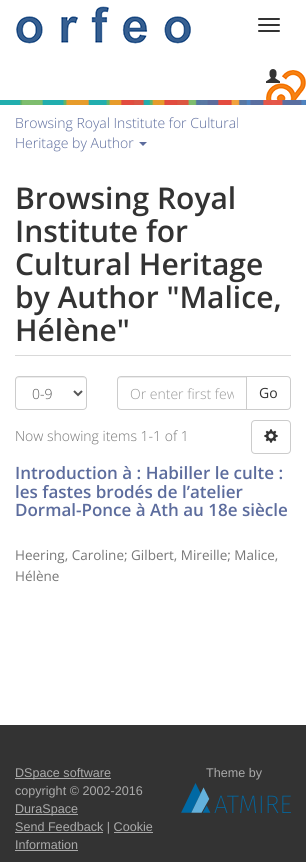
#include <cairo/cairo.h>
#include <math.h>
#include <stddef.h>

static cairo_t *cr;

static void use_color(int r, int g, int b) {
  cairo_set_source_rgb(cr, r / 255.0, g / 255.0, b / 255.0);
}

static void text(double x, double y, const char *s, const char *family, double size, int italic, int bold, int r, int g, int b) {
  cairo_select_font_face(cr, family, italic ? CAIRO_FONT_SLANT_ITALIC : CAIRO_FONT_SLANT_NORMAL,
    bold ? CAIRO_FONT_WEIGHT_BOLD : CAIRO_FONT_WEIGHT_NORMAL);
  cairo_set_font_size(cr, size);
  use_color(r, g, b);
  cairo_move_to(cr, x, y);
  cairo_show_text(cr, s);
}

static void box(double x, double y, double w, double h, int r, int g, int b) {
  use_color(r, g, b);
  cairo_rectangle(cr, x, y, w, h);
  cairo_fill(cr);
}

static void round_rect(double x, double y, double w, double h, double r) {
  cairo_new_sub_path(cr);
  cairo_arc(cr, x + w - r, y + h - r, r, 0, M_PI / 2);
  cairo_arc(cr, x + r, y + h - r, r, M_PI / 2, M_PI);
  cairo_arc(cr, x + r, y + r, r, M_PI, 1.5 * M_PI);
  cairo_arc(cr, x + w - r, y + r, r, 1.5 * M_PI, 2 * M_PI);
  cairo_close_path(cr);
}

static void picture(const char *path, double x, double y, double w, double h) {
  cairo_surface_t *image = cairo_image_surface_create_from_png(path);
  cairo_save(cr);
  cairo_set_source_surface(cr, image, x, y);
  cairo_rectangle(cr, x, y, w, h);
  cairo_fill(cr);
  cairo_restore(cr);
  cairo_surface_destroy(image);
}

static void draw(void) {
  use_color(255, 255, 255);
  cairo_paint(cr);
  picture("img_01.png", 266, 70, 40, 30);
  picture("img_02.png", 16, 6, 175, 38);
  use_color(51, 51, 51);
  round_rect(258, 18, 22, 2, 1);
  cairo_fill(cr);
  round_rect(258, 24, 22, 2, 1);
  cairo_fill(cr);
  round_rect(258, 30, 22, 2, 1);
  cairo_fill(cr);
  picture("img_03.png", 266, 69, 14, 14);
  picture("img_04.png", 0, 100, 306, 5);
  use_color(92, 108, 157);
  cairo_new_path(cr);
  cairo_move_to(cr, 139, 142);
  cairo_line_to(cr, 147, 142);
  cairo_line_to(cr, 143, 146);
  cairo_close_path(cr);
  cairo_fill(cr);
  box(15, 355, 276, 1, 217, 217, 217);
  use_color(236, 236, 236);
  cairo_new_path(cr);
  cairo_move_to(cr, 19, 378);
  cairo_line_to(cr, 83, 378);
  cairo_curve_to(cr, 85, 378, 86, 379, 86, 381);
  cairo_curve_to(cr, 86, 374, 77, 377, 72, 377);
  cairo_line_to(cr, 30, 377);
  cairo_curve_to(cr, 25, 377, 16, 374, 16, 381);
  cairo_curve_to(cr, 16, 379, 17, 378, 19, 378);
  cairo_close_path(cr);
  cairo_fill(cr);
  round_rect(15.5, 376.5, 71, 33, 3.5);
  use_color(204, 204, 204);
  cairo_set_line_width(cr, 1);
  cairo_stroke(cr);
  cairo_new_path(cr);
  cairo_move_to(cr, 74, 391);
  cairo_line_to(cr, 78, 395);
  cairo_line_to(cr, 82, 391);
  use_color(85, 85, 85);
  cairo_set_line_width(cr, 2);
  cairo_stroke(cr);
  cairo_new_path(cr);
  cairo_move_to(cr, 246.5, 376.5);
  cairo_line_to(cr, 287, 376.5);
  cairo_curve_to(cr, 289, 376.5, 290.5, 378, 290.5, 380);
  cairo_line_to(cr, 290.5, 406);
  cairo_curve_to(cr, 290.5, 408, 289, 409.5, 287, 409.5);
  cairo_line_to(cr, 246.5, 409.5);
  cairo_close_path(cr);
  use_color(204, 204, 204);
  cairo_set_line_width(cr, 1);
  cairo_stroke(cr);
  use_color(255, 255, 255);
  cairo_new_path(cr);
  cairo_move_to(cr, 121, 376);
  cairo_line_to(cr, 247, 376);
  cairo_line_to(cr, 247, 410);
  cairo_line_to(cr, 121, 410);
  cairo_curve_to(cr, 119, 410, 117, 408, 117, 406);
  cairo_line_to(cr, 117, 380);
  cairo_curve_to(cr, 117, 378, 119, 376, 121, 376);
  cairo_close_path(cr);
  cairo_fill(cr);
  use_color(236, 236, 236);
  cairo_new_path(cr);
  cairo_move_to(cr, 121, 378);
  cairo_line_to(cr, 246, 378);
  cairo_line_to(cr, 246, 377);
  cairo_line_to(cr, 121, 377);
  cairo_curve_to(cr, 119, 377, 118, 379, 118, 381);
  cairo_curve_to(cr, 118, 379, 119, 378, 121, 378);
  cairo_close_path(cr);
  cairo_fill(cr);
  cairo_new_path(cr);
  cairo_move_to(cr, 121, 376.5);
  cairo_line_to(cr, 246.5, 376.5);
  cairo_line_to(cr, 246.5, 409.5);
  cairo_line_to(cr, 121, 409.5);
  cairo_curve_to(cr, 119, 409.5, 117.5, 408, 117.5, 406);
  cairo_line_to(cr, 117.5, 380);
  cairo_curve_to(cr, 117.5, 378, 119, 376.5, 121, 376.5);
  cairo_close_path(cr);
  use_color(204, 204, 204);
  cairo_stroke(cr);
  round_rect(251.5, 420.5, 39, 33, 3.5);
  cairo_stroke(cr);
  picture("img_05.png", 264, 429, 14, 14);
  box(0, 725, 306, 137, 51, 51, 51);
  box(15, 778, 96, 1, 170, 170, 170);
  box(15, 814, 63, 1, 170, 170, 170);
  box(15, 832, 88, 1, 170, 170, 170);
  box(114, 832, 39, 1, 170, 170, 170);
  box(15, 850, 63, 1, 170, 170, 170);
  picture("img_06.png", 181, 783, 110, 30);
  text(15, 128, "Browsing Royal Institute for Cultural", "Open Sans Light", 14, 0, 0, 92, 108, 157);
  text(15, 148, "Heritage by Author", "Open Sans Light", 14, 0, 0, 92, 108, 157);
  text(15, 209, "Browsing Royal", "Open Sans SemiBold", 30, 0, 0, 51, 51, 51);
  text(15, 242, "Institute for", "Open Sans SemiBold", 30, 0, 0, 51, 51, 51);
  text(15, 275, "Cultural Heritage", "Open Sans SemiBold", 30, 0, 0, 51, 51, 51);
  text(15, 308, "by Author \"Malice,", "Open Sans SemiBold", 30, 0, 0, 51, 51, 51);
  text(15, 341, "Hélène\"", "Open Sans SemiBold", 30, 0, 0, 51, 51, 51);
  text(32, 399, "0-9", "Open Sans Light", 14, 0, 0, 85, 85, 85);
  cairo_save(cr);
  cairo_rectangle(cr, 130, 384, 104, 19);
  cairo_clip(cr);
  text(130, 399, "Or enter first few", "Open Sans Light", 14, 0, 0, 153, 153, 153);
  cairo_restore(cr);
  text(259, 398, "Go", "Open Sans", 14, 0, 0, 51, 51, 51);
  text(15, 441, "Now showing items 1-1 of 1", "Open Sans Light", 14, 0, 0, 119, 119, 119);
  text(15, 479, "Introduction à : Habiller le culte :", "Open Sans SemiBold", 17, 0, 0, 92, 108, 157);
  text(15, 498, "les fastes brodés de l’atelier", "Open Sans SemiBold", 17, 0, 0, 92, 108, 157);
  text(15, 516, "Dormal-Ponce à Ath au 18e siècle", "Open Sans SemiBold", 17, 0, 0, 92, 108, 157);
  text(15, 560, "Heering, Caroline; Gilbert, Mireille; Malice,", "Open Sans", 13.5, 0, 0, 119, 119, 119);
  text(15, 581, "Hélène", "Open Sans", 13.5, 0, 0, 119, 119, 119);
  text(15, 777, "DSpace software", "Liberation Sans", 12.6, 0, 0, 170, 170, 170);
  text(15, 795, "copyright © 2002-2016", "Liberation Sans", 12.6, 0, 0, 170, 170, 170);
  text(15, 813, "DuraSpace", "Liberation Sans", 12.6, 0, 0, 170, 170, 170);
  text(15, 831, "Send Feedback | Cookie", "Liberation Sans", 12.6, 0, 0, 170, 170, 170);
  text(15, 849, "Information", "Liberation Sans", 12.6, 0, 0, 170, 170, 170);
  text(206, 777, "Theme by", "Liberation Sans", 12.6, 0, 0, 170, 170, 170);
}

int main(void) {
  cairo_surface_t *surface = cairo_image_surface_create(CAIRO_FORMAT_RGB24, 306, 862);
  cr = cairo_create(surface);
  cairo_font_options_t *options = cairo_font_options_create();
  cairo_font_options_set_hint_metrics(options, CAIRO_HINT_METRICS_OFF);
  cairo_font_options_set_hint_style(options, CAIRO_HINT_STYLE_NONE);
  cairo_set_font_options(cr, options);
  cairo_set_miter_limit(cr, 4);
  draw();
  cairo_surface_write_to_png(surface, "out.png");
  cairo_font_options_destroy(options);
  cairo_destroy(cr);
  cairo_surface_destroy(surface);
  return 0;
}
